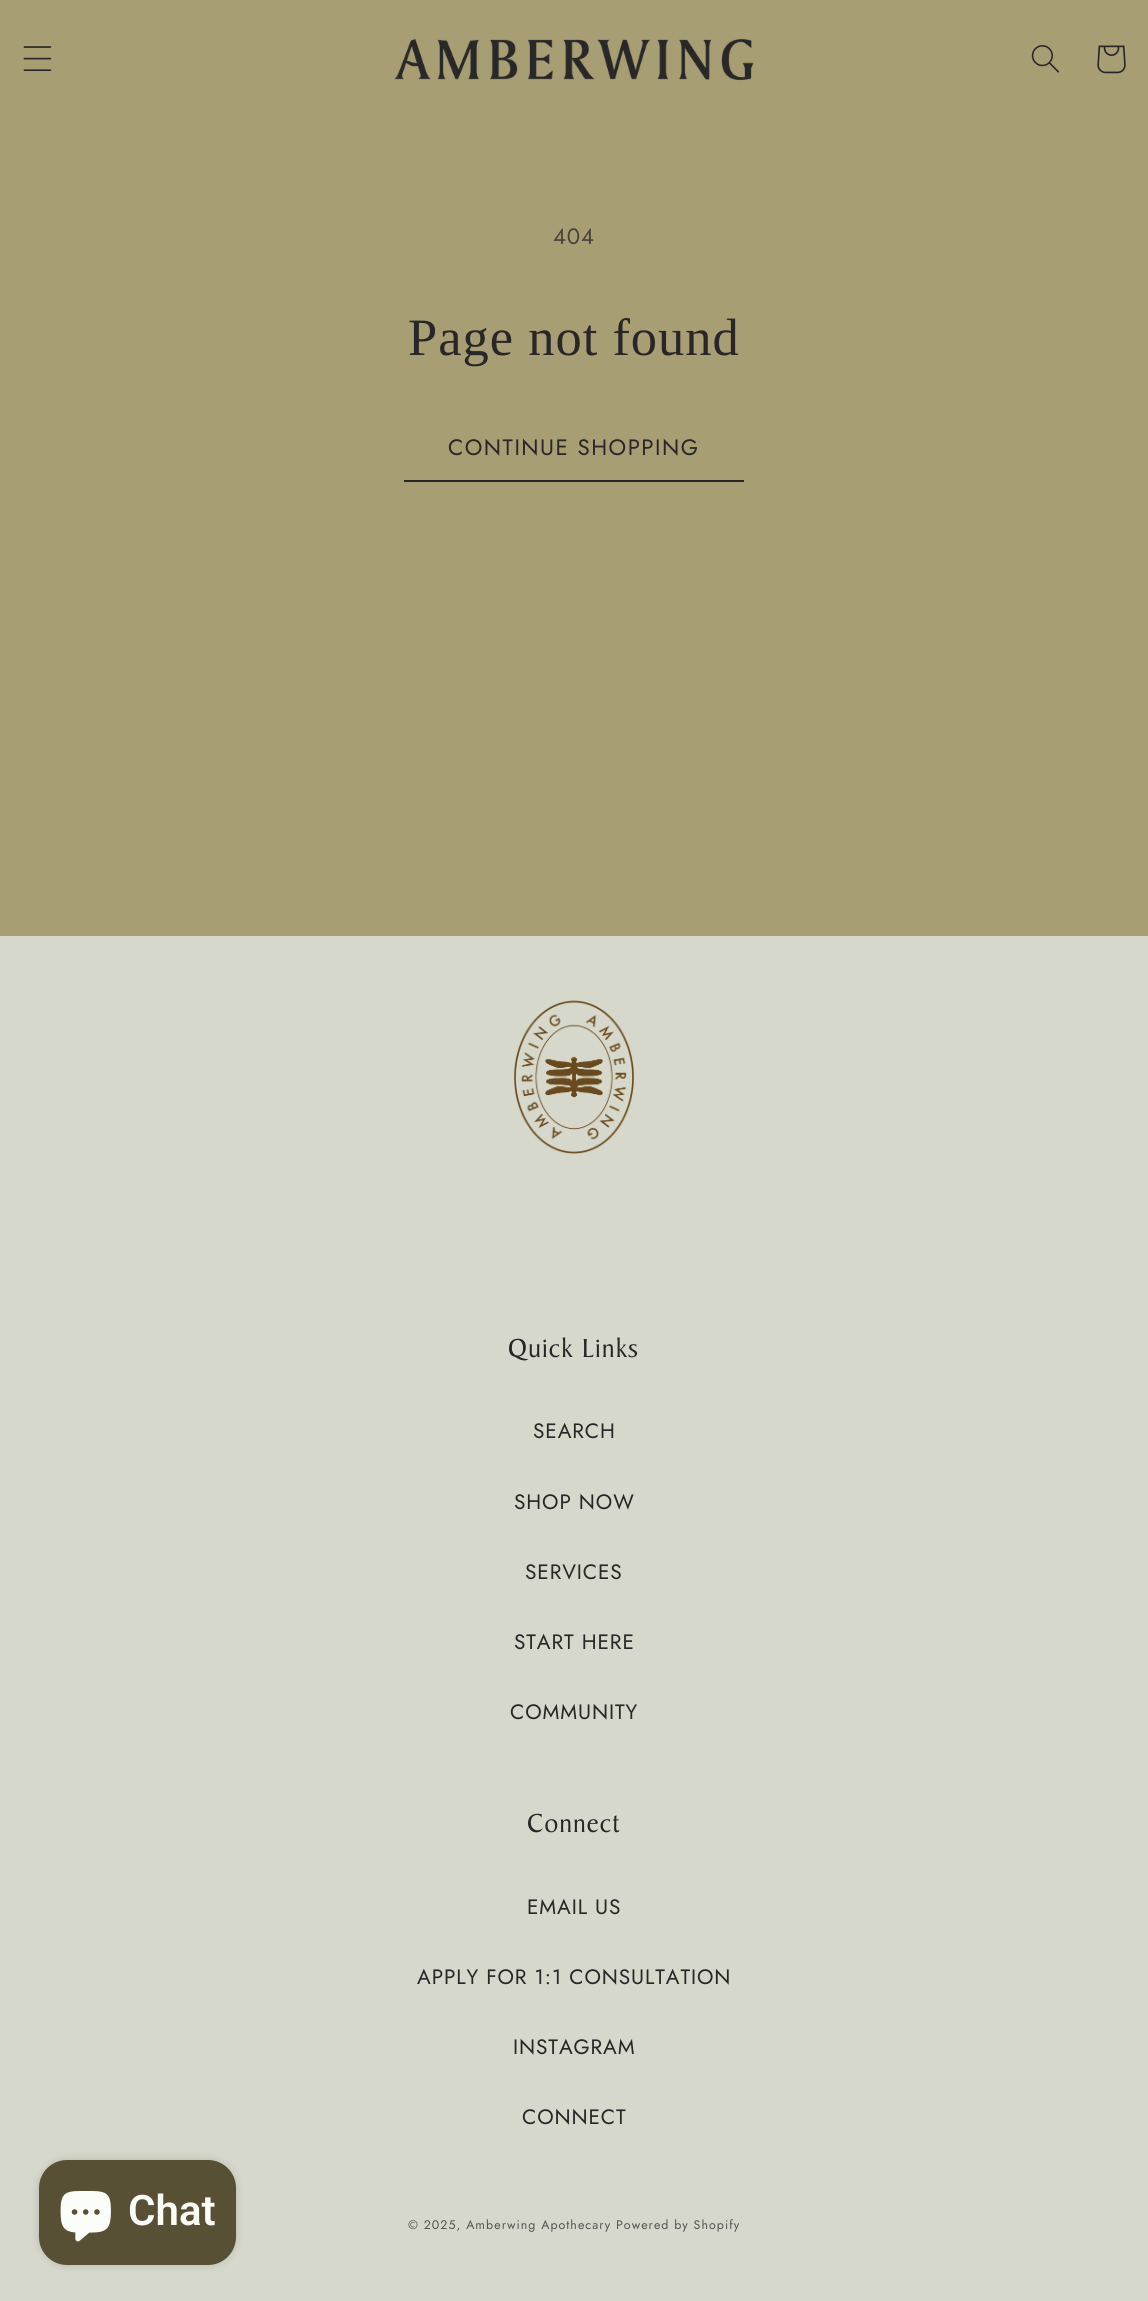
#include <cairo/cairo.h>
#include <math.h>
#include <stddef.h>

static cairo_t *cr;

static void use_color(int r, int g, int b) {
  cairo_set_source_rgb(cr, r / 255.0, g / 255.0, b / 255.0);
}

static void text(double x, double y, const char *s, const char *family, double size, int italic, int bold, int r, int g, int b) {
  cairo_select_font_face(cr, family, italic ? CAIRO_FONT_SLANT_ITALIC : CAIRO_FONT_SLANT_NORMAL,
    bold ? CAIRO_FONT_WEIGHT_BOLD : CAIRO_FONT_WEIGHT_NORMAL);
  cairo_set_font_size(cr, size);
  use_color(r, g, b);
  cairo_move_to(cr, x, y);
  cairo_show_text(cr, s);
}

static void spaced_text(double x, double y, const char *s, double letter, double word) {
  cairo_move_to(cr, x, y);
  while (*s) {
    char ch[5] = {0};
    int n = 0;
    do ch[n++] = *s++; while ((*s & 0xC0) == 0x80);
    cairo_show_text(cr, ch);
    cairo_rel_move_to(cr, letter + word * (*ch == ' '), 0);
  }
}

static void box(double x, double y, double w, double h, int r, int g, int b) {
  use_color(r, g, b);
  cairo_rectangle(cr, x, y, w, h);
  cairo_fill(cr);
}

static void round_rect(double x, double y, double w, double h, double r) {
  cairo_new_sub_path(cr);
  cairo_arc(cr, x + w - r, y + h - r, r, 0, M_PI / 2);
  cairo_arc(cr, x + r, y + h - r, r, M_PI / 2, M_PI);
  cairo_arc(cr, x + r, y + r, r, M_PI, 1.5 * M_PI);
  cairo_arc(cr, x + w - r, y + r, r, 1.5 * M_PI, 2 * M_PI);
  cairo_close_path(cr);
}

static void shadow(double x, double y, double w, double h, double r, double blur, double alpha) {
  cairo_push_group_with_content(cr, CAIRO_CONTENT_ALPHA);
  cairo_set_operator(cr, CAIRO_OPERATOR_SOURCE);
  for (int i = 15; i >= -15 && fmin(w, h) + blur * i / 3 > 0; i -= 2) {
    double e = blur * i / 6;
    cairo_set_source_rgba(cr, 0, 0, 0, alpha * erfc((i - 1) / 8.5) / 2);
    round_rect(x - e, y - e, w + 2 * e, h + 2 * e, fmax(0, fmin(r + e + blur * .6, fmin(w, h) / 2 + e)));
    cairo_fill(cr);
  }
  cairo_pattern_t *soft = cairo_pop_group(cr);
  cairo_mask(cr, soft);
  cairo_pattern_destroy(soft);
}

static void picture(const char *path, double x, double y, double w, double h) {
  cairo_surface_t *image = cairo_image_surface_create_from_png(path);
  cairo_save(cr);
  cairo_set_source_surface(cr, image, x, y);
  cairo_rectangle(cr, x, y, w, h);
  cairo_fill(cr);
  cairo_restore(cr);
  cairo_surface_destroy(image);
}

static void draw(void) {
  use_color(167, 158, 116);
  cairo_paint(cr);
  picture("img_01.png", 23, 46, 29, 25);
  picture("img_02.png", 394, 39, 360, 42);
  picture("img_03.png", 1031, 45, 28, 28);
  picture("img_04.png", 1097, 45, 29, 29);
  box(404, 480, 340, 2, 40, 38, 39);
  box(0, 936, 1148, 1365, 213, 216, 202);
  use_color(0, 0, 0);
  shadow(39, 2160, 197, 105, 28, 4.5, 0.15);
  use_color(87, 80, 52);
  round_rect(39, 2160, 197, 105, 28);
  cairo_fill(cr);
  picture("img_05.png", 60, 2191, 51, 51);
  picture("img_06.png", 514, 1000, 120, 154);
  cairo_select_font_face(cr, "Jost", CAIRO_FONT_SLANT_NORMAL, CAIRO_FONT_WEIGHT_NORMAL);
  cairo_set_font_size(cr, 22.25);
  use_color(72, 68, 58);
  spaced_text(553, 244, "404", 0.9, 0);
  cairo_select_font_face(cr, "Liberation Serif", CAIRO_FONT_SLANT_NORMAL, CAIRO_FONT_WEIGHT_NORMAL);
  cairo_set_font_size(cr, 52.5);
  use_color(40, 38, 39);
  spaced_text(408, 355, "Page not found", 1, 0);
  cairo_select_font_face(cr, "Jost", CAIRO_FONT_SLANT_NORMAL, CAIRO_FONT_WEIGHT_NORMAL);
  cairo_set_font_size(cr, 22.25);
  spaced_text(448, 455, "CONTINUE SHOPPING", 1.5, 0);
  text(128, 2225, "Chat", "Roboto SemiBold", 42, 0, 0, 250, 253, 248);
  cairo_select_font_face(cr, "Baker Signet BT", CAIRO_FONT_SLANT_NORMAL, CAIRO_FONT_WEIGHT_NORMAL);
  cairo_set_font_size(cr, 28);
  use_color(40, 38, 39);
  spaced_text(508, 1357, "Quick Links", 1, 0);
  cairo_select_font_face(cr, "Jost", CAIRO_FONT_SLANT_NORMAL, CAIRO_FONT_WEIGHT_NORMAL);
  cairo_set_font_size(cr, 20.8);
  spaced_text(533, 1438, "SEARCH", 0.9, 0);
  spaced_text(514, 1509, "SHOP NOW", 0.9, 0);
  spaced_text(525, 1579, "SERVICES", 0.9, 0);
  spaced_text(514, 1649, "START HERE", 0.9, 0);
  spaced_text(510, 1719, "COMMUNITY", 0.9, 0);
  cairo_select_font_face(cr, "Baker Signet BT", CAIRO_FONT_SLANT_NORMAL, CAIRO_FONT_WEIGHT_NORMAL);
  cairo_set_font_size(cr, 28);
  spaced_text(527, 1832, "Connect", 1, 0);
  cairo_select_font_face(cr, "Jost", CAIRO_FONT_SLANT_NORMAL, CAIRO_FONT_WEIGHT_NORMAL);
  cairo_set_font_size(cr, 20.8);
  spaced_text(527, 1914, "EMAIL US", 0.9, 0);
  spaced_text(417, 1984, "APPLY FOR 1:1 CONSULTATION", 0.9, 0);
  spaced_text(513, 2054, "INSTAGRAM", 0.9, 0);
  spaced_text(522, 2124, "CONNECT", 0.9, 0);
  cairo_set_font_size(cr, 12.4);
  use_color(83, 83, 80);
  spaced_text(408, 2229, "© 2025, Amberwing Apothecary", 1.05, 0);
  spaced_text(616, 2229, "Powered by Shopify", 1.05, 0);
}

int main(void) {
  cairo_surface_t *surface = cairo_image_surface_create(CAIRO_FORMAT_RGB24, 1148, 2301);
  cr = cairo_create(surface);
  cairo_font_options_t *options = cairo_font_options_create();
  cairo_font_options_set_hint_metrics(options, CAIRO_HINT_METRICS_OFF);
  cairo_font_options_set_hint_style(options, CAIRO_HINT_STYLE_NONE);
  cairo_set_font_options(cr, options);
  cairo_set_miter_limit(cr, 4);
  draw();
  cairo_surface_write_to_png(surface, "out.png");
  cairo_font_options_destroy(options);
  cairo_destroy(cr);
  cairo_surface_destroy(surface);
  return 0;
}
